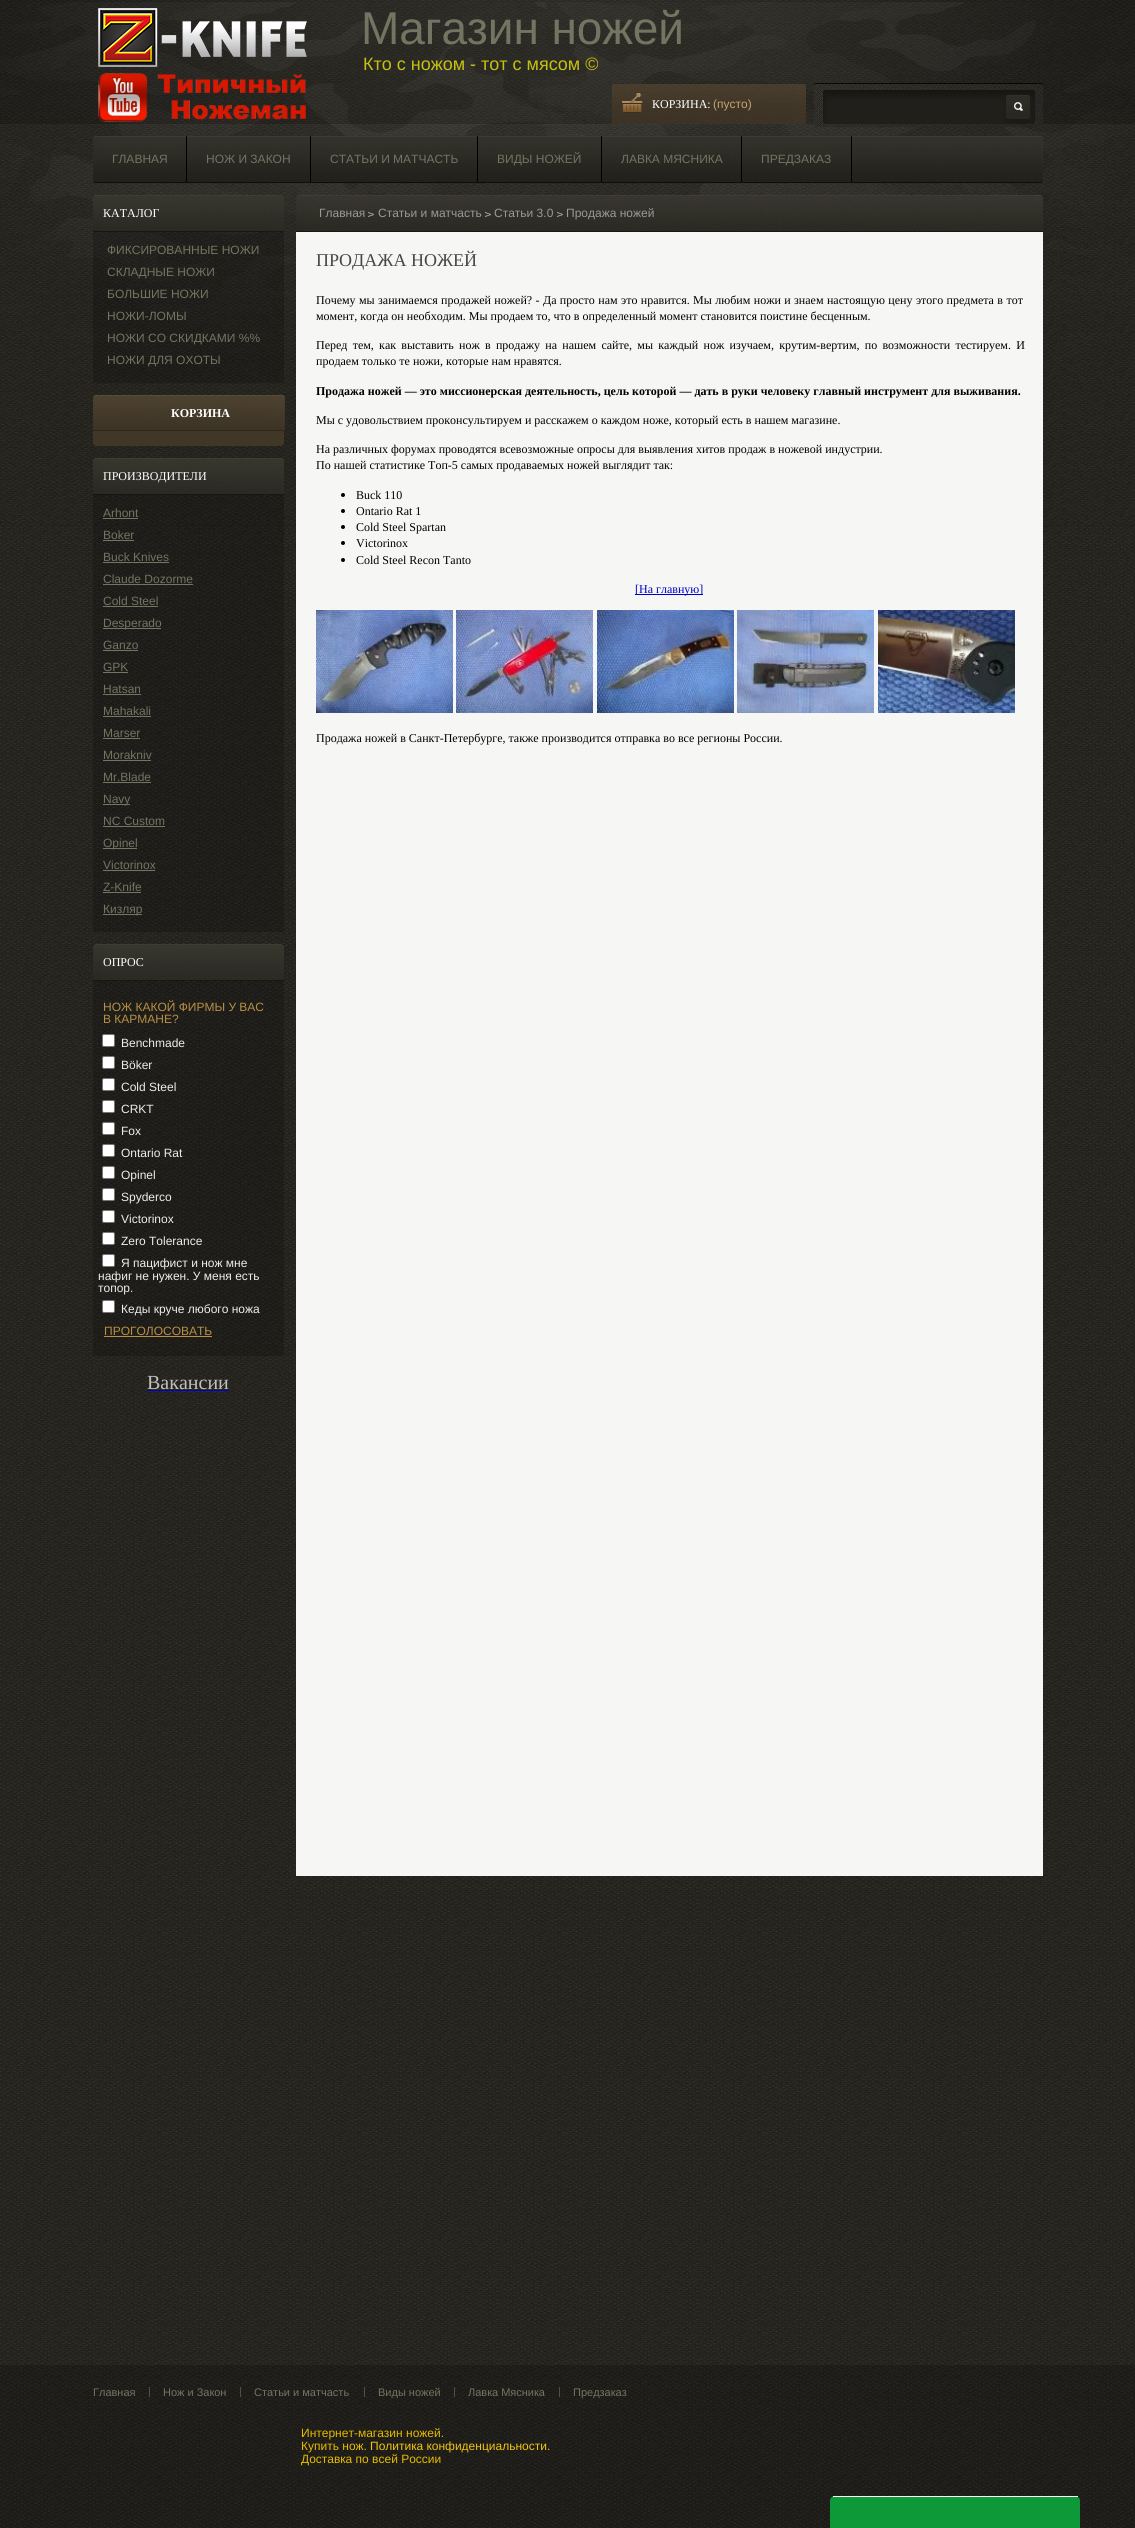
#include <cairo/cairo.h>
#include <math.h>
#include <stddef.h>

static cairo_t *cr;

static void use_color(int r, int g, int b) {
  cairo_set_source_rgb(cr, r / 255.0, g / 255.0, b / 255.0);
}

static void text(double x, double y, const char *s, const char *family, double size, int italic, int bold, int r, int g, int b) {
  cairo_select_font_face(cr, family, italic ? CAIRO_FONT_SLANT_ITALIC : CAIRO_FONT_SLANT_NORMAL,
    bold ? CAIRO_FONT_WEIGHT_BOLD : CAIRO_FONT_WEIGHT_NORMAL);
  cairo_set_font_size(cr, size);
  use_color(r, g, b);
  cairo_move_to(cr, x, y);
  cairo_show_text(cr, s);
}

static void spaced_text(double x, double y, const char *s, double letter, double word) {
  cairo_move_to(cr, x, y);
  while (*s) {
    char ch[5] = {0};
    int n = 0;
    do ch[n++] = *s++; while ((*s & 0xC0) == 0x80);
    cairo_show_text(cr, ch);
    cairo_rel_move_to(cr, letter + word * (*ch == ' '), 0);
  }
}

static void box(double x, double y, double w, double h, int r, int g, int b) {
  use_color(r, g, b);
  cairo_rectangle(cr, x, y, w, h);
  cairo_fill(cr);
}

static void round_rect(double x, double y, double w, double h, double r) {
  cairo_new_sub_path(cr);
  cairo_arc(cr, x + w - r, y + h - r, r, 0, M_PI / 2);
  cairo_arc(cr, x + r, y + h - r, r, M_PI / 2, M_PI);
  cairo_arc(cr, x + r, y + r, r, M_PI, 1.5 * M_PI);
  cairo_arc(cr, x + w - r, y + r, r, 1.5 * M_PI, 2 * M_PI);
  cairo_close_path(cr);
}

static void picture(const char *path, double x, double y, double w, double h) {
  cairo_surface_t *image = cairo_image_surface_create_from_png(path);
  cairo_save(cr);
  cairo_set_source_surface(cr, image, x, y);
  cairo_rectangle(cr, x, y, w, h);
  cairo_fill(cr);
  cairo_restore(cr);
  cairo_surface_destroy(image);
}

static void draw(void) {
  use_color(255, 255, 255);
  cairo_paint(cr);
  picture("img_01.png", 0, 526, 1135, 2002);
  picture("img_02.png", 0, 0, 1135, 526);
  picture("img_03.png", 98, 8, 209, 59);
  picture("img_04.png", 98, 73, 208, 49);
  picture("img_05.png", 612, 84, 194, 40);
  picture("img_06.png", 814, 83, 229, 44);
  picture("img_07.png", 93, 136, 950, 47);
  box(186, 136, 1, 46, 0, 0, 0);
  box(310, 136, 1, 46, 0, 0, 0);
  box(477, 136, 1, 46, 0, 0, 0);
  box(601, 136, 1, 46, 0, 0, 0);
  box(741, 136, 1, 46, 0, 0, 0);
  box(851, 136, 1, 46, 0, 0, 0);
  cairo_set_source_rgba(cr, 0, 0, 0, 0.2);
  cairo_rectangle(cr, 93, 195, 191, 188);
  cairo_fill(cr);
  picture("img_08.png", 93, 195, 191, 37);
  use_color(65, 55, 39);
  round_rect(93, 395, 191, 51, 4);
  cairo_fill(cr);
  picture("img_09.png", 93, 395, 192, 36);
  cairo_set_source_rgba(cr, 0, 0, 0, 0.2);
  cairo_rectangle(cr, 93, 458, 191, 474);
  cairo_fill(cr);
  picture("img_10.png", 93, 458, 191, 37);
  box(103, 518, 35, 1, 116, 116, 98);
  box(103, 540, 31, 1, 116, 116, 98);
  box(103, 562, 66, 1, 116, 116, 98);
  box(103, 584, 90, 1, 116, 116, 98);
  box(103, 606, 55, 1, 116, 116, 98);
  box(103, 628, 58, 1, 116, 116, 98);
  box(103, 650, 35, 1, 116, 116, 98);
  box(103, 672, 25, 1, 116, 116, 98);
  box(103, 694, 38, 1, 116, 116, 98);
  box(103, 716, 48, 1, 116, 116, 98);
  box(103, 738, 37, 1, 116, 116, 98);
  box(103, 760, 48, 1, 116, 116, 98);
  box(103, 782, 48, 1, 116, 116, 98);
  box(103, 804, 27, 1, 116, 116, 98);
  box(103, 826, 62, 1, 116, 116, 98);
  box(103, 848, 34, 1, 116, 116, 98);
  box(103, 870, 52, 1, 116, 116, 98);
  box(103, 892, 38, 1, 116, 116, 98);
  box(103, 914, 39, 1, 116, 116, 98);
  cairo_set_source_rgba(cr, 0, 0, 0, 0.2);
  cairo_rectangle(cr, 93, 944, 191, 412);
  cairo_fill(cr);
  picture("img_11.png", 93, 944, 191, 37);
  use_color(255, 255, 255);
  round_rect(102.5, 1034.5, 12, 12, 1.5);
  cairo_fill_preserve(cr);
  use_color(118, 118, 118);
  cairo_set_line_width(cr, 1);
  cairo_stroke(cr);
  use_color(255, 255, 255);
  round_rect(102.5, 1056.5, 12, 12, 1.5);
  cairo_fill_preserve(cr);
  use_color(118, 118, 118);
  cairo_stroke(cr);
  use_color(255, 255, 255);
  round_rect(102.5, 1078.5, 12, 12, 1.5);
  cairo_fill_preserve(cr);
  use_color(118, 118, 118);
  cairo_stroke(cr);
  use_color(255, 255, 255);
  round_rect(102.5, 1100.5, 12, 12, 1.5);
  cairo_fill_preserve(cr);
  use_color(118, 118, 118);
  cairo_stroke(cr);
  use_color(255, 255, 255);
  round_rect(102.5, 1122.5, 12, 12, 1.5);
  cairo_fill_preserve(cr);
  use_color(118, 118, 118);
  cairo_stroke(cr);
  use_color(255, 255, 255);
  round_rect(102.5, 1144.5, 12, 12, 1.5);
  cairo_fill_preserve(cr);
  use_color(118, 118, 118);
  cairo_stroke(cr);
  use_color(255, 255, 255);
  round_rect(102.5, 1166.5, 12, 12, 1.5);
  cairo_fill_preserve(cr);
  use_color(118, 118, 118);
  cairo_stroke(cr);
  use_color(255, 255, 255);
  round_rect(102.5, 1188.5, 12, 12, 1.5);
  cairo_fill_preserve(cr);
  use_color(118, 118, 118);
  cairo_stroke(cr);
  use_color(255, 255, 255);
  round_rect(102.5, 1210.5, 12, 12, 1.5);
  cairo_fill_preserve(cr);
  use_color(118, 118, 118);
  cairo_stroke(cr);
  use_color(255, 255, 255);
  round_rect(102.5, 1232.5, 12, 12, 1.5);
  cairo_fill_preserve(cr);
  use_color(118, 118, 118);
  cairo_stroke(cr);
  use_color(255, 255, 255);
  round_rect(102.5, 1254.5, 12, 12, 1.5);
  cairo_fill_preserve(cr);
  use_color(118, 118, 118);
  cairo_stroke(cr);
  use_color(255, 255, 255);
  round_rect(102.5, 1300.5, 12, 12, 1.5);
  cairo_fill_preserve(cr);
  use_color(118, 118, 118);
  cairo_stroke(cr);
  box(104, 1336, 108, 1, 185, 143, 69);
  box(147, 1390, 82, 1, 0, 0, 205);
  picture("img_12.png", 296, 195, 747, 37);
  picture("img_13.png", 368, 212, 6, 5);
  picture("img_14.png", 485, 212, 6, 5);
  picture("img_15.png", 557, 212, 6, 5);
  box(296, 232, 747, 1644, 246, 246, 244);
  use_color(0, 0, 0);
  cairo_arc(cr, 343, 495, 2, 0, 2 * M_PI);
  cairo_fill(cr);
  cairo_arc(cr, 343, 511, 2, 0, 2 * M_PI);
  cairo_fill(cr);
  cairo_arc(cr, 343, 527, 2, 0, 2 * M_PI);
  cairo_fill(cr);
  cairo_arc(cr, 343, 543, 2, 0, 2 * M_PI);
  cairo_fill(cr);
  cairo_arc(cr, 343, 560, 2, 0, 2 * M_PI);
  cairo_fill(cr);
  box(635, 594, 68, 1, 0, 0, 205);
  picture("img_16.png", 316, 610, 137, 103);
  picture("img_17.png", 456, 610, 137, 103);
  picture("img_18.png", 597, 610, 137, 103);
  picture("img_19.png", 737, 610, 137, 103);
  picture("img_20.png", 878, 610, 137, 103);
  cairo_set_source_rgba(cr, 0, 0, 0, 0.2);
  cairo_rectangle(cr, 0, 2365, 1135, 163);
  cairo_fill(cr);
  picture("img_21.png", 149, 2387, 1, 10);
  picture("img_21.png", 240, 2387, 1, 10);
  picture("img_21.png", 364, 2387, 1, 10);
  picture("img_21.png", 454, 2387, 1, 10);
  picture("img_21.png", 559, 2387, 1, 10);
  use_color(13, 153, 56);
  cairo_new_path(cr);
  cairo_move_to(cr, 835, 2496);
  cairo_line_to(cr, 1075, 2496);
  cairo_curve_to(cr, 1078, 2496, 1080, 2498, 1080, 2501);
  cairo_line_to(cr, 1080, 2528);
  cairo_line_to(cr, 830, 2528);
  cairo_line_to(cr, 830, 2501);
  cairo_curve_to(cr, 830, 2498, 832, 2496, 835, 2496);
  cairo_close_path(cr);
  cairo_fill(cr);
  box(833, 2496, 245, 1, 255, 255, 255);
  cairo_select_font_face(cr, "Liberation Sans", CAIRO_FONT_SLANT_NORMAL, CAIRO_FONT_WEIGHT_NORMAL);
  cairo_set_font_size(cr, 46);
  use_color(116, 116, 98);
  spaced_text(361, 44, "Магазин ножей", -0.1, 0);
  text(363, 70, "Кто с ножом - тот с мясом ©", "Liberation Sans", 18, 0, 0, 197, 194, 15);
  text(652, 108, "КОРЗИНА:", "Liberation Serif", 12, 0, 0, 255, 255, 255);
  text(713, 108, "(пусто)", "Liberation Sans", 12, 0, 0, 198, 164, 115);
  text(112, 163, "ГЛАВНАЯ", "Liberation Sans", 12, 0, 0, 116, 116, 98);
  text(206, 163, "НОЖ И ЗАКОН", "Liberation Sans", 12, 0, 0, 116, 116, 98);
  text(330, 163, "СТАТЬИ И МАТЧАСТЬ", "Liberation Sans", 12, 0, 0, 116, 116, 98);
  text(497, 163, "ВИДЫ НОЖЕЙ", "Liberation Sans", 12, 0, 0, 116, 116, 98);
  text(621, 163, "ЛАВКА МЯСНИКА", "Liberation Sans", 12, 0, 0, 116, 116, 98);
  text(761, 163, "ПРЕДЗАКАЗ", "Liberation Sans", 12, 0, 0, 116, 116, 98);
  text(103, 217, "КАТАЛОГ", "Liberation Serif", 12, 0, 0, 255, 255, 255);
  text(107, 254, "ФИКСИРОВАННЫЕ НОЖИ", "Liberation Sans", 12, 0, 0, 116, 116, 98);
  text(107, 276, "СКЛАДНЫЕ НОЖИ", "Liberation Sans", 12, 0, 0, 116, 116, 98);
  text(107, 298, "БОЛЬШИЕ НОЖИ", "Liberation Sans", 12, 0, 0, 116, 116, 98);
  text(107, 320, "НОЖИ-ЛОМЫ", "Liberation Sans", 12, 0, 0, 116, 116, 98);
  text(107, 342, "НОЖИ СО СКИДКАМИ %%", "Liberation Sans", 12, 0, 0, 116, 116, 98);
  text(107, 364, "НОЖИ ДЛЯ ОХОТЫ", "Liberation Sans", 12, 0, 0, 116, 116, 98);
  text(171, 417, "КОРЗИНА", "Liberation Serif", 12, 0, 1, 255, 255, 255);
  text(103, 480, "ПРОИЗВОДИТЕЛИ", "Liberation Serif", 12, 0, 0, 255, 255, 255);
  text(103, 517, "Arhont", "Liberation Sans", 12, 0, 0, 116, 116, 98);
  text(103, 539, "Boker", "Liberation Sans", 12, 0, 0, 116, 116, 98);
  text(103, 561, "Buck Knives", "Liberation Sans", 12, 0, 0, 116, 116, 98);
  text(103, 583, "Claude Dozorme", "Liberation Sans", 12, 0, 0, 116, 116, 98);
  text(103, 605, "Cold Steel", "Liberation Sans", 12, 0, 0, 116, 116, 98);
  text(103, 627, "Desperado", "Liberation Sans", 12, 0, 0, 116, 116, 98);
  text(103, 649, "Ganzo", "Liberation Sans", 12, 0, 0, 116, 116, 98);
  text(103, 671, "GPK", "Liberation Sans", 12, 0, 0, 116, 116, 98);
  text(103, 693, "Hatsan", "Liberation Sans", 12, 0, 0, 116, 116, 98);
  text(103, 715, "Mahakali", "Liberation Sans", 12, 0, 0, 116, 116, 98);
  text(103, 737, "Marser", "Liberation Sans", 12, 0, 0, 116, 116, 98);
  text(103, 759, "Morakniv", "Liberation Sans", 12, 0, 0, 116, 116, 98);
  text(103, 781, "Mr.Blade", "Liberation Sans", 12, 0, 0, 116, 116, 98);
  text(103, 803, "Navy", "Liberation Sans", 12, 0, 0, 116, 116, 98);
  text(103, 825, "NC Custom", "Liberation Sans", 12, 0, 0, 116, 116, 98);
  text(103, 847, "Opinel", "Liberation Sans", 12, 0, 0, 116, 116, 98);
  text(103, 869, "Victorinox", "Liberation Sans", 12, 0, 0, 116, 116, 98);
  text(103, 891, "Z-Knife", "Liberation Sans", 12, 0, 0, 116, 116, 98);
  text(103, 913, "Кизляр", "Liberation Sans", 12, 0, 0, 116, 116, 98);
  text(103, 966, "ОПРОС", "Liberation Serif", 12, 0, 0, 255, 255, 255);
  text(103, 1011, "НОЖ КАКОЙ ФИРМЫ У ВАС", "Liberation Sans", 12, 0, 0, 185, 143, 69);
  text(103, 1023, "В КАРМАНЕ?", "Liberation Sans", 12, 0, 0, 185, 143, 69);
  text(121, 1047, "Benchmade", "Liberation Sans", 12, 0, 0, 237, 237, 237);
  text(121, 1069, "Böker", "Liberation Sans", 12, 0, 0, 237, 237, 237);
  text(121, 1091, "Cold Steel", "Liberation Sans", 12, 0, 0, 237, 237, 237);
  text(121, 1113, "CRKT", "Liberation Sans", 12, 0, 0, 237, 237, 237);
  text(121, 1135, "Fox", "Liberation Sans", 12, 0, 0, 237, 237, 237);
  text(121, 1157, "Ontario Rat", "Liberation Sans", 12, 0, 0, 237, 237, 237);
  text(121, 1179, "Opinel", "Liberation Sans", 12, 0, 0, 237, 237, 237);
  text(121, 1201, "Spyderco", "Liberation Sans", 12, 0, 0, 237, 237, 237);
  text(121, 1223, "Victorinox", "Liberation Sans", 12, 0, 0, 237, 237, 237);
  text(121, 1245, "Zero Tolerance", "Liberation Sans", 12, 0, 0, 237, 237, 237);
  text(121, 1267, "Я пацифист и нож мне", "Liberation Sans", 12, 0, 0, 237, 237, 237);
  text(98, 1280, "нафиг не нужен. У меня есть", "Liberation Sans", 12, 0, 0, 237, 237, 237);
  text(98, 1292, "топор.", "Liberation Sans", 12, 0, 0, 237, 237, 237);
  text(121, 1313, "Кеды круче любого ножа", "Liberation Sans", 12, 0, 0, 237, 237, 237);
  text(104, 1335, "ПРОГОЛОСОВАТЬ", "Liberation Sans", 12, 0, 0, 185, 143, 69);
  text(147, 1389, "Вакансии", "Liberation Serif", 20, 0, 0, 192, 192, 192);
  text(319, 217, "Главная", "Liberation Sans", 12, 0, 0, 153, 153, 153);
  text(378, 217, "Статьи и матчасть", "Liberation Sans", 12, 0, 0, 153, 153, 153);
  text(494, 217, "Статьи 3.0", "Liberation Sans", 12, 0, 0, 153, 153, 153);
  text(566, 217, "Продажа ножей", "Liberation Sans", 12, 0, 0, 153, 153, 153);
  text(316, 266, "ПРОДАЖА НОЖЕЙ", "Liberation Serif", 18, 0, 0, 70, 71, 71);
  cairo_set_font_size(cr, 12);
  use_color(0, 0, 0);
  spaced_text(316, 304, "Почему мы занимаемся продажей ножей? - Да просто нам это нравится. Мы любим ножи и знаем настоящую цену этого предмета в тот", 0, 0.4);
  text(316, 320, "момент, когда он необходим. Мы продаем то, что в определенный момент становится поистине бесценным.", "Liberation Serif", 12, 0, 0, 0, 0, 0);
  spaced_text(316, 349, "Перед тем, как выставить нож в продажу на нашем сайте, мы каждый нож изучаем, крутим-вертим, по возможности тестируем. И", 0, 2.25);
  text(316, 365, "продаем только те ножи, которые нам нравятся.", "Liberation Serif", 12, 0, 0, 0, 0, 0);
  text(316, 395, "Продажа ножей — это миссионерская деятельность, цель которой — дать в руки человеку главный инструмент для выживания.", "Liberation Serif", 12, 0, 1, 0, 0, 0);
  text(316, 424, "Мы с удовольствием проконсультируем и расскажем о каждом ноже, который есть в нашем магазине.", "Liberation Serif", 12, 0, 0, 0, 0, 0);
  text(316, 453, "На различных форумах проводятся всевозможные опросы для выявления хитов продаж в ножевой индустрии.", "Liberation Serif", 12, 0, 0, 0, 0, 0);
  text(316, 469, "По нашей статистике Топ-5 самых продаваемых ножей выглядит так:", "Liberation Serif", 12, 0, 0, 0, 0, 0);
  text(356, 499, "Buck 110", "Liberation Serif", 12, 0, 0, 0, 0, 0);
  text(356, 515, "Ontario Rat 1", "Liberation Serif", 12, 0, 0, 0, 0, 0);
  text(356, 531, "Cold Steel Spartan", "Liberation Serif", 12, 0, 0, 0, 0, 0);
  text(356, 547, "Victorinox", "Liberation Serif", 12, 0, 0, 0, 0, 0);
  text(356, 564, "Cold Steel Recon Tanto", "Liberation Serif", 12, 0, 0, 0, 0, 0);
  text(635, 593, "[На главную]", "Liberation Serif", 12, 0, 0, 0, 0, 205);
  text(316, 742, "Продажа ножей в Санкт-Петербурге, также производится отправка во все регионы России.", "Liberation Serif", 12, 0, 0, 0, 0, 0);
  text(93, 2396, "Главная", "Liberation Sans", 11, 0, 0, 116, 116, 98);
  text(163, 2396, "Нож и Закон", "Liberation Sans", 11, 0, 0, 116, 116, 98);
  text(254, 2396, "Статьи и матчасть", "Liberation Sans", 11, 0, 0, 116, 116, 98);
  text(378, 2396, "Виды ножей", "Liberation Sans", 11, 0, 0, 116, 116, 98);
  text(468, 2396, "Лавка Мясника", "Liberation Sans", 11, 0, 0, 116, 116, 98);
  text(573, 2396, "Предзаказ", "Liberation Sans", 11, 0, 0, 116, 116, 98);
  text(301, 2437, "Интернет-магазин ножей.", "Liberation Sans", 12, 0, 0, 229, 187, 0);
  text(301, 2450, "Купить нож.", "Liberation Sans", 12, 0, 0, 229, 187, 0);
  text(370, 2450, "Политика конфиденциальности.", "Liberation Sans", 12, 0, 0, 241, 196, 15);
  text(301, 2463, "Доставка по всей России", "Liberation Sans", 12, 0, 0, 229, 187, 0);
}

int main(void) {
  cairo_surface_t *surface = cairo_image_surface_create(CAIRO_FORMAT_RGB24, 1135, 2528);
  cr = cairo_create(surface);
  cairo_font_options_t *options = cairo_font_options_create();
  cairo_font_options_set_hint_metrics(options, CAIRO_HINT_METRICS_OFF);
  cairo_font_options_set_hint_style(options, CAIRO_HINT_STYLE_NONE);
  cairo_set_font_options(cr, options);
  cairo_set_miter_limit(cr, 4);
  draw();
  cairo_surface_write_to_png(surface, "out.png");
  cairo_font_options_destroy(options);
  cairo_destroy(cr);
  cairo_surface_destroy(surface);
  return 0;
}
